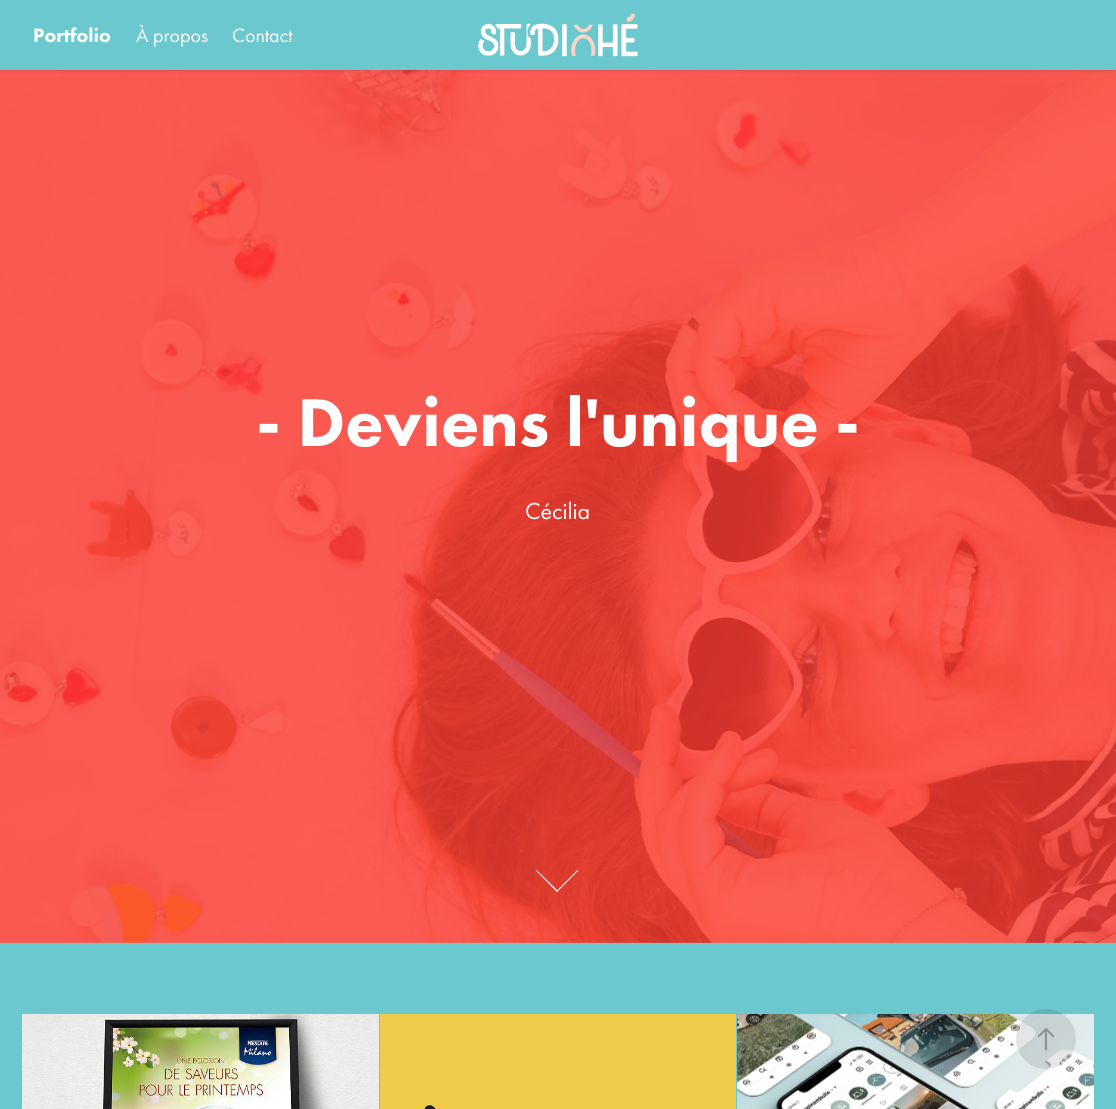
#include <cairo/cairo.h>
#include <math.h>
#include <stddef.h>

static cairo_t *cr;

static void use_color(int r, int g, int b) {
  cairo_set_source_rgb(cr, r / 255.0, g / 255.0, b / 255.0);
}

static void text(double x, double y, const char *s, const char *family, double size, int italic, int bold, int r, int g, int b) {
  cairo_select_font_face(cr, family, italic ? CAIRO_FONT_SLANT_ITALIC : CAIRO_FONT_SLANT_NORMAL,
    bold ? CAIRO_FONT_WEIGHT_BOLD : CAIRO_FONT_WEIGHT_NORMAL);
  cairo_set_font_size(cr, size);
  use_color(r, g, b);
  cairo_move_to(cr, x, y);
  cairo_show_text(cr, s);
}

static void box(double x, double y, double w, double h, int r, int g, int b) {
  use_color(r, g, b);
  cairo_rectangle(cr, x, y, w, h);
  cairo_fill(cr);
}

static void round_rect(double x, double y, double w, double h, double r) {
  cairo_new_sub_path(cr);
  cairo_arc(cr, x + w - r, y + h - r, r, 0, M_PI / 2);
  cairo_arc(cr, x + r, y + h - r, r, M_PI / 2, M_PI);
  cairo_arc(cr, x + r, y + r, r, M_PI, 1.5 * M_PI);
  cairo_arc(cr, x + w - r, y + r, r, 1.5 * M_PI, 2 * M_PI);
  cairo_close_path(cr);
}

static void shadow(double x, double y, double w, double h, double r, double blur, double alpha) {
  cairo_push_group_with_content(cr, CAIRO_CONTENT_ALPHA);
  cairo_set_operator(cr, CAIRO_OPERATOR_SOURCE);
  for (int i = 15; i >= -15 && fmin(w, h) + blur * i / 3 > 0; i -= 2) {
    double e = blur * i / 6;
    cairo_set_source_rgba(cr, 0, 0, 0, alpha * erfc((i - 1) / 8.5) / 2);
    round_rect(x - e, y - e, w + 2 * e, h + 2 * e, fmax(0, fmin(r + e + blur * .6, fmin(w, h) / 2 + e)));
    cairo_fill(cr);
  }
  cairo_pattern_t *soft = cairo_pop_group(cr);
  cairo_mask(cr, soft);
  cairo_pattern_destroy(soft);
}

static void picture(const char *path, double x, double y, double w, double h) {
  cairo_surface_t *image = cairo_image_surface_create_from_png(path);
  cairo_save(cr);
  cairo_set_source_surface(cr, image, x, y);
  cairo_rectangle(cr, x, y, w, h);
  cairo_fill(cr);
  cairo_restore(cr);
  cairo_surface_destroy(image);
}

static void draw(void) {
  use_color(108, 200, 207);
  cairo_paint(cr);
  picture("img_02.png", 0, 70, 1116, 873);
  use_color(0, 0, 0);
  shadow(0, 1, 1116, 70, 0, 1.5, 0.1);
  box(0, 0, 1116, 70, 108, 200, 207);
  picture("img_01.png", 478, 13, 160, 44);
  use_color(255, 255, 255);
  cairo_new_path(cr);
  cairo_move_to(cr, 577.5, 870);
  cairo_line_to(cr, 578.5, 870.5);
  cairo_line_to(cr, 557, 892);
  cairo_line_to(cr, 556.5, 891);
  cairo_close_path(cr);
  cairo_fill(cr);
  cairo_new_path(cr);
  cairo_move_to(cr, 536.5, 870);
  cairo_line_to(cr, 558, 891);
  cairo_line_to(cr, 557, 892);
  cairo_line_to(cr, 536, 870.5);
  cairo_close_path(cr);
  cairo_fill(cr);
  picture("img_06.png", 737, 1014, 357, 95);
  cairo_set_source_rgba(cr, 0, 0, 0, 0.1);
  cairo_arc(cr, 1046, 1039, 30, 0, 2 * M_PI);
  cairo_fill(cr);
  picture("img_03.png", 1037, 1028, 18, 23);
  picture("img_04.png", 22, 1014, 357, 95);
  picture("img_05.png", 380, 1014, 356, 95);
  text(33, 42, "Portfolio", "Futura PT Black", 20, 0, 0, 255, 255, 255);
  text(136, 42, "À propos", "Futura PT", 20, 0, 0, 255, 255, 255);
  text(232, 42, "Contact", "Futura PT", 20, 0, 0, 255, 255, 255);
  text(256, 446, "- Deviens l'unique -", "Futura PT Black", 70, 0, 0, 255, 255, 255);
  text(525, 519, "Cécilia", "Futura PT", 24, 0, 0, 255, 255, 255);
}

int main(void) {
  cairo_surface_t *surface = cairo_image_surface_create(CAIRO_FORMAT_RGB24, 1116, 1109);
  cr = cairo_create(surface);
  cairo_font_options_t *options = cairo_font_options_create();
  cairo_font_options_set_hint_metrics(options, CAIRO_HINT_METRICS_OFF);
  cairo_font_options_set_hint_style(options, CAIRO_HINT_STYLE_NONE);
  cairo_set_font_options(cr, options);
  cairo_set_miter_limit(cr, 4);
  draw();
  cairo_surface_write_to_png(surface, "out.png");
  cairo_font_options_destroy(options);
  cairo_destroy(cr);
  cairo_surface_destroy(surface);
  return 0;
}
